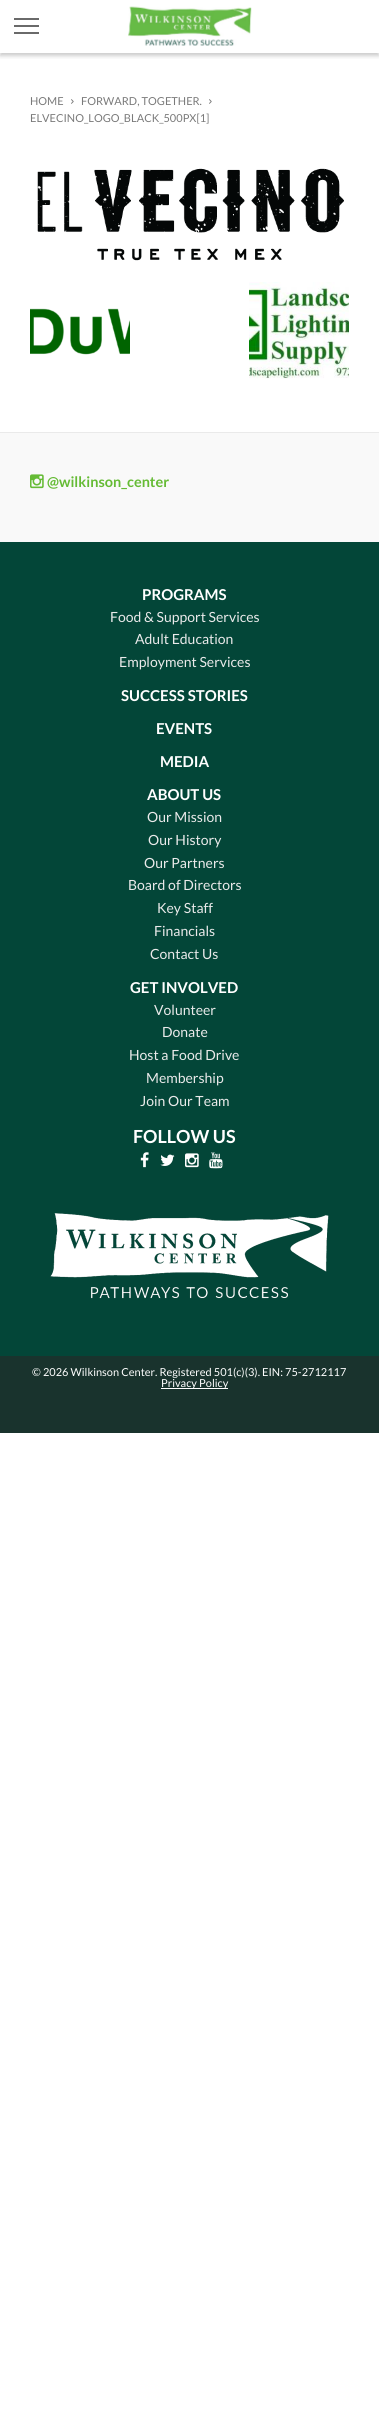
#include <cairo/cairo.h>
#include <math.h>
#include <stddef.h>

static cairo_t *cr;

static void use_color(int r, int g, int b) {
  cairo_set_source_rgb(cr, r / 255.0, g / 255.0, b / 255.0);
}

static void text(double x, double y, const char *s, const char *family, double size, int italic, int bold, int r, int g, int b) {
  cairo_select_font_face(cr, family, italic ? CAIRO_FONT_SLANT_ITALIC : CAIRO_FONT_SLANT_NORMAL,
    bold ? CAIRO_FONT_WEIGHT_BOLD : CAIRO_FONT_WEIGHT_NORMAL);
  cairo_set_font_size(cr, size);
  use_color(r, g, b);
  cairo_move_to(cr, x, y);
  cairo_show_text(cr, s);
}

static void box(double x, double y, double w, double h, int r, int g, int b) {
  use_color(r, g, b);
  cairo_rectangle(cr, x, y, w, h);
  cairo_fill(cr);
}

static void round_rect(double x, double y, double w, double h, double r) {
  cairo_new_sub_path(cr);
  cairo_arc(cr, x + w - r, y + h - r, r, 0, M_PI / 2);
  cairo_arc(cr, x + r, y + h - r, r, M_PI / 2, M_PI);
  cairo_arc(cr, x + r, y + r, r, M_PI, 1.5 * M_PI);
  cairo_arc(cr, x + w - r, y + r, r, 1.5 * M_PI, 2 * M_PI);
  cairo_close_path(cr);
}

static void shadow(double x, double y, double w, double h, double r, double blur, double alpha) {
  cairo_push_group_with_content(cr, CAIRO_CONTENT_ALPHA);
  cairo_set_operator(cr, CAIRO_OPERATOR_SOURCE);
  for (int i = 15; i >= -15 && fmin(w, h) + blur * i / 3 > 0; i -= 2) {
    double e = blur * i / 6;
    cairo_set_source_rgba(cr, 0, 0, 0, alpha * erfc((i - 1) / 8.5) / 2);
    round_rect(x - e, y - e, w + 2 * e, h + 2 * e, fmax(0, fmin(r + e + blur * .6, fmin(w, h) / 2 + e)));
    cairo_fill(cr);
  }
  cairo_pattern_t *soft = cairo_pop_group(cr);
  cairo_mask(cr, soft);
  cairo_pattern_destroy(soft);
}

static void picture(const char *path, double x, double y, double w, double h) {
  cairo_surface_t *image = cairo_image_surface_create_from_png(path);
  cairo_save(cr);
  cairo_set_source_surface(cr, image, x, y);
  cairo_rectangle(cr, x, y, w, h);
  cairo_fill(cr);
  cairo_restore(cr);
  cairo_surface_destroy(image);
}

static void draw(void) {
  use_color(255, 255, 255);
  cairo_paint(cr);
  cairo_save(cr);
  cairo_rectangle(cr, 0, 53, 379, 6);
  cairo_clip(cr);
  use_color(0, 0, 0);
  shadow(0, 3, 379, 53, 0, 2, 0.2);
  cairo_restore(cr);
  box(14, 18, 25, 2, 106, 106, 106);
  box(14, 25, 25, 2, 106, 106, 106);
  box(14, 32, 25, 2, 106, 106, 106);
  picture("img_01.png", 128, 6, 124, 40);
  picture("img_02.png", 71, 99, 3, 5);
  picture("img_02.png", 209, 99, 3, 5);
  picture("img_03.png", 37, 168, 307, 93);
  picture("img_04.png", 30, 308, 100, 47);
  picture("img_05.png", 249, 282, 100, 97);
  box(0, 433, 379, 109, 249, 249, 249);
  box(0, 432, 379, 1, 234, 234, 234);
  picture("img_06.png", 30, 474, 14, 15);
  box(0, 542, 379, 814, 3, 70, 56);
  picture("img_07.png", 140, 1152, 9, 16);
  picture("img_08.png", 160, 1154, 15, 12);
  picture("img_09.png", 185, 1153, 14, 15);
  picture("img_10.png", 209, 1152, 14, 17);
  picture("img_11.png", 50, 1213, 279, 86);
  box(0, 1356, 379, 77, 25, 51, 45);
  box(161, 1388, 67, 1, 255, 255, 255);
  text(30, 105, "HOME", "Lato", 11, 0, 0, 122, 122, 122);
  text(81, 105, "FORWARD, TOGETHER.", "Lato", 11, 0, 0, 122, 122, 122);
  text(30, 122, "ELVECINO_LOGO_BLACK_500PX[1]", "Lato", 11, 0, 0, 122, 122, 122);
  text(47, 487, "@wilkinson_center", "Lato", 14.5, 0, 1, 101, 187, 53);
  text(142, 600, "PROGRAMS", "Lato", 15, 0, 1, 255, 255, 255);
  text(110, 622, "Food & Support Services", "Lato", 14, 0, 0, 234, 234, 234);
  text(135, 644, "Adult Education", "Lato", 14, 0, 0, 234, 234, 234);
  text(119, 667, "Employment Services", "Lato", 14, 0, 0, 234, 234, 234);
  text(121, 701, "SUCCESS STORIES", "Lato", 15, 0, 1, 255, 255, 255);
  text(156, 734, "EVENTS", "Lato", 15, 0, 1, 255, 255, 255);
  text(160, 767, "MEDIA", "Lato", 15, 0, 1, 255, 255, 255);
  text(147, 800, "ABOUT US", "Lato", 15, 0, 1, 255, 255, 255);
  text(147, 822, "Our Mission", "Lato", 14, 0, 0, 234, 234, 234);
  text(148, 845, "Our History", "Lato", 14, 0, 0, 234, 234, 234);
  text(144, 868, "Our Partners", "Lato", 14, 0, 0, 234, 234, 234);
  text(128, 890, "Board of Directors", "Lato", 14, 0, 0, 234, 234, 234);
  text(157, 913, "Key Staff", "Lato", 14, 0, 0, 234, 234, 234);
  text(154, 936, "Financials", "Lato", 14, 0, 0, 234, 234, 234);
  text(150, 959, "Contact Us", "Lato", 14, 0, 0, 234, 234, 234);
  text(130, 993, "GET INVOLVED", "Lato", 15, 0, 1, 255, 255, 255);
  text(154, 1015, "Volunteer", "Lato", 14, 0, 0, 234, 234, 234);
  text(162, 1037, "Donate", "Lato", 14, 0, 0, 234, 234, 234);
  text(129, 1060, "Host a Food Drive", "Lato", 14, 0, 0, 234, 234, 234);
  text(146, 1083, "Membership", "Lato", 14, 0, 0, 234, 234, 234);
  text(140, 1106, "Join Our Team", "Lato", 14, 0, 0, 234, 234, 234);
  text(133, 1143, "FOLLOW US", "Lato", 18, 0, 1, 255, 255, 255);
  text(32, 1376, "© 2026 Wilkinson Center. Registered 501(c)(3). EIN: 75-2712117", "Lato", 11, 0, 0, 255, 255, 255);
  text(161, 1387, "Privacy Policy", "Lato", 11, 0, 0, 255, 255, 255);
}

int main(void) {
  cairo_surface_t *surface = cairo_image_surface_create(CAIRO_FORMAT_RGB24, 379, 2433);
  cr = cairo_create(surface);
  cairo_font_options_t *options = cairo_font_options_create();
  cairo_font_options_set_hint_metrics(options, CAIRO_HINT_METRICS_OFF);
  cairo_font_options_set_hint_style(options, CAIRO_HINT_STYLE_NONE);
  cairo_set_font_options(cr, options);
  cairo_set_miter_limit(cr, 4);
  draw();
  cairo_surface_write_to_png(surface, "out.png");
  cairo_font_options_destroy(options);
  cairo_destroy(cr);
  cairo_surface_destroy(surface);
  return 0;
}
